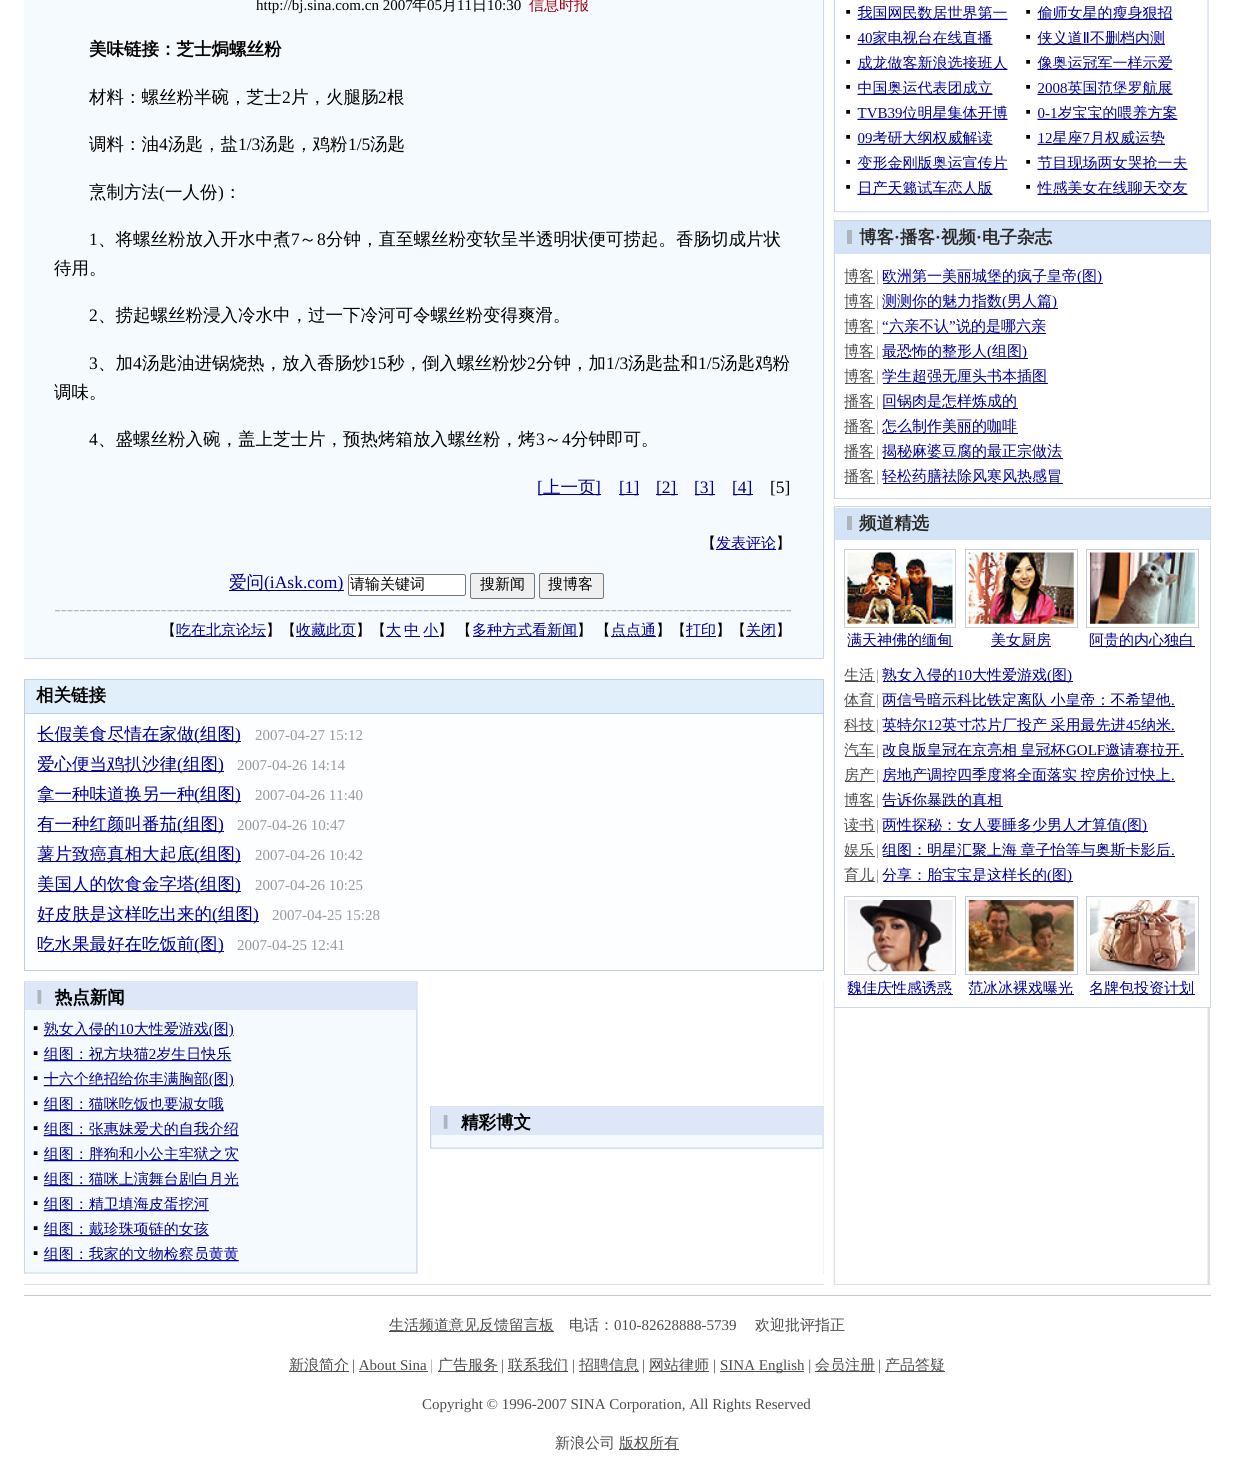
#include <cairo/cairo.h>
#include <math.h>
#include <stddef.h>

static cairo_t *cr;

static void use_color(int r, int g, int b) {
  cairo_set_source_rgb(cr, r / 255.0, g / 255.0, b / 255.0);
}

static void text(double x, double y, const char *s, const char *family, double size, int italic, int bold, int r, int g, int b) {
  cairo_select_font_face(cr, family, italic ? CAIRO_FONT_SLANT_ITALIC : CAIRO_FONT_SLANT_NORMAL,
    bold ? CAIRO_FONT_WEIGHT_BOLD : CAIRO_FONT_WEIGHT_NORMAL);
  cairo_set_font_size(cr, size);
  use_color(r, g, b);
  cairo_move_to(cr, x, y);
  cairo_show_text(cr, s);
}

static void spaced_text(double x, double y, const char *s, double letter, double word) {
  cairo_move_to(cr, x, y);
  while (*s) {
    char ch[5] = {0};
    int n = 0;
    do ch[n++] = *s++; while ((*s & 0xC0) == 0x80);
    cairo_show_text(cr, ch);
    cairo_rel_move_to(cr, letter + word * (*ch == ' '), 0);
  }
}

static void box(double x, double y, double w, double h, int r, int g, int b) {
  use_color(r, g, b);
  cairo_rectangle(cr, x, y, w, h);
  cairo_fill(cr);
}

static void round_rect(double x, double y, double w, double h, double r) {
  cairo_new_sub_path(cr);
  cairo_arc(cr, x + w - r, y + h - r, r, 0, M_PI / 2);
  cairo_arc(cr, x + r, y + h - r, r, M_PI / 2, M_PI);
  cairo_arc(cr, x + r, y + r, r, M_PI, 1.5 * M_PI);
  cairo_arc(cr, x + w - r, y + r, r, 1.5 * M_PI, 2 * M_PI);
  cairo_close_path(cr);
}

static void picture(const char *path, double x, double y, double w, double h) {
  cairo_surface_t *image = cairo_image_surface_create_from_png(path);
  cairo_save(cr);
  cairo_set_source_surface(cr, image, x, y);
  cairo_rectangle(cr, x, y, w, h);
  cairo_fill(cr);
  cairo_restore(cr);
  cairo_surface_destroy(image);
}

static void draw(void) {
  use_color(255, 255, 255);
  cairo_paint(cr);
  picture("img_01.png", 24, 981, 800, 293);
  box(24, 1284, 800, 1, 222, 223, 222);
  box(24, 0, 799, 658, 245, 250, 254);
  box(823, 0, 1, 659, 203, 215, 236);
  box(24, 658, 800, 1, 203, 215, 236);
  box(538, 494, 63, 1, 0, 0, 153);
  box(619, 494, 20, 1, 0, 0, 153);
  box(656, 494, 22, 1, 0, 0, 153);
  box(695, 494, 20, 1, 0, 0, 153);
  box(733, 494, 20, 1, 0, 0, 153);
  box(716, 549, 60, 1, 0, 0, 153);
  box(229, 590, 115, 1, 0, 0, 153);
  use_color(255, 255, 255);
  round_rect(348.5, 574.5, 117, 21, 2);
  cairo_fill_preserve(cr);
  use_color(118, 118, 118);
  cairo_set_line_width(cr, 1);
  cairo_stroke(cr);
  use_color(239, 239, 239);
  round_rect(470.5, 573.5, 64, 25, 2);
  cairo_fill_preserve(cr);
  use_color(118, 118, 118);
  cairo_stroke(cr);
  use_color(239, 239, 239);
  round_rect(539.5, 573.5, 64, 25, 2);
  cairo_fill_preserve(cr);
  use_color(118, 118, 118);
  cairo_stroke(cr);
  picture("img_02.png", 55, 610, 737, 2);
  box(176, 636, 90, 1, 0, 0, 153);
  box(296, 636, 60, 1, 0, 0, 153);
  box(386, 636, 15, 1, 0, 0, 153);
  box(405, 636, 15, 1, 0, 0, 153);
  box(424, 636, 15, 1, 0, 0, 153);
  box(473, 636, 105, 1, 0, 0, 153);
  box(611, 636, 45, 1, 0, 0, 153);
  box(686, 636, 30, 1, 0, 0, 153);
  box(746, 636, 30, 1, 0, 0, 153);
  box(24, 679, 800, 1, 190, 206, 230);
  box(24, 679, 1, 292, 190, 206, 230);
  box(25, 680, 798, 33, 225, 239, 250);
  box(823, 680, 1, 291, 190, 206, 230);
  box(25, 713, 799, 1, 190, 206, 230);
  box(25, 714, 798, 256, 252, 254, 255);
  box(25, 970, 799, 1, 190, 206, 230);
  box(38, 741, 203, 1, 0, 0, 153);
  box(38, 771, 186, 1, 0, 0, 153);
  box(38, 801, 203, 1, 0, 0, 153);
  box(38, 831, 186, 1, 0, 0, 153);
  box(38, 861, 203, 1, 0, 0, 153);
  box(38, 891, 203, 1, 0, 0, 153);
  box(38, 921, 221, 1, 0, 0, 153);
  box(38, 951, 186, 1, 0, 0, 153);
  picture("img_03.png", 24, 981, 800, 293);
  picture("img_04.png", 833, 0, 377, 1285);
  box(834, 1284, 377, 1, 222, 223, 222);
  box(834, 0, 376, 506, 255, 255, 255);
  picture("img_05.png", 834, 0, 375, 213);
  cairo_rectangle(cr, 834.5, 220.5, 376, 278);
  use_color(203, 215, 236);
  cairo_stroke(cr);
  box(835, 221, 375, 33, 212, 227, 246);
  box(847, 230, 5, 14, 172, 180, 190);
  box(845, 283, 30, 1, 77, 77, 77);
  box(883, 283, 220, 1, 0, 0, 153);
  box(845, 308, 30, 1, 77, 77, 77);
  box(883, 308, 175, 1, 0, 0, 153);
  box(845, 333, 30, 1, 77, 77, 77);
  box(883, 333, 163, 1, 0, 0, 153);
  box(845, 358, 30, 1, 77, 77, 77);
  box(883, 358, 145, 1, 0, 0, 153);
  box(845, 383, 30, 1, 77, 77, 77);
  box(883, 383, 165, 1, 0, 0, 153);
  box(845, 408, 30, 1, 77, 77, 77);
  box(883, 408, 135, 1, 0, 0, 153);
  box(845, 433, 30, 1, 77, 77, 77);
  box(883, 433, 135, 1, 0, 0, 153);
  box(845, 458, 30, 1, 77, 77, 77);
  box(883, 458, 180, 1, 0, 0, 153);
  box(845, 483, 30, 1, 77, 77, 77);
  box(883, 483, 180, 1, 0, 0, 153);
  use_color(255, 255, 255);
  cairo_rectangle(cr, 834.5, 506.5, 376, 501);
  cairo_fill_preserve(cr);
  use_color(203, 215, 236);
  cairo_stroke(cr);
  box(835, 508, 375, 32, 212, 227, 246);
  box(847, 516, 5, 14, 172, 180, 190);
  cairo_rectangle(cr, 844.5, 549.5, 111, 78);
  use_color(200, 207, 217);
  cairo_stroke(cr);
  picture("img_06.png", 847, 552, 106, 72);
  box(848, 646, 105, 1, 0, 0, 153);
  cairo_rectangle(cr, 965.5, 549.5, 112, 78);
  use_color(200, 207, 217);
  cairo_stroke(cr);
  picture("img_07.png", 968, 552, 106, 72);
  box(991, 646, 60, 1, 0, 0, 153);
  cairo_rectangle(cr, 1086.5, 549.5, 112, 78);
  use_color(200, 207, 217);
  cairo_stroke(cr);
  picture("img_08.png", 1090, 552, 105, 72);
  box(1090, 646, 105, 1, 0, 0, 153);
  box(845, 681, 30, 1, 77, 77, 77);
  box(883, 681, 190, 1, 0, 0, 153);
  box(845, 706, 30, 1, 77, 77, 77);
  box(883, 706, 292, 1, 0, 0, 153);
  box(845, 731, 30, 1, 77, 77, 77);
  box(883, 731, 292, 1, 0, 0, 153);
  box(845, 756, 30, 1, 77, 77, 77);
  box(883, 756, 301, 1, 0, 0, 153);
  box(845, 781, 30, 1, 77, 77, 77);
  box(883, 781, 292, 1, 0, 0, 153);
  box(845, 806, 30, 1, 77, 77, 77);
  box(883, 806, 120, 1, 0, 0, 153);
  box(845, 831, 30, 1, 77, 77, 77);
  box(883, 831, 265, 1, 0, 0, 153);
  box(845, 856, 30, 1, 77, 77, 77);
  box(883, 856, 292, 1, 0, 0, 153);
  box(845, 881, 30, 1, 77, 77, 77);
  box(883, 881, 190, 1, 0, 0, 153);
  cairo_rectangle(cr, 844.5, 896.5, 111, 78);
  use_color(200, 207, 217);
  cairo_stroke(cr);
  picture("img_09.png", 847, 900, 106, 72);
  box(848, 994, 105, 1, 0, 0, 153);
  cairo_rectangle(cr, 965.5, 896.5, 112, 78);
  use_color(200, 207, 217);
  cairo_stroke(cr);
  picture("img_10.png", 968, 900, 106, 72);
  box(969, 994, 105, 1, 0, 0, 153);
  cairo_rectangle(cr, 1086.5, 896.5, 112, 78);
  use_color(200, 207, 217);
  cairo_stroke(cr);
  picture("img_11.png", 1090, 900, 105, 72);
  box(1090, 994, 105, 1, 0, 0, 153);
  box(24, 1295, 1187, 1, 200, 198, 197);
  box(389, 1331, 165, 1, 77, 77, 77);
  box(289, 1371, 60, 1, 77, 77, 77);
  box(438, 1371, 60, 1, 77, 77, 77);
  box(508, 1371, 60, 1, 77, 77, 77);
  box(579, 1371, 60, 1, 77, 77, 77);
  box(649, 1371, 60, 1, 77, 77, 77);
  box(720, 1371, 84, 1, 77, 77, 77);
  box(815, 1371, 60, 1, 77, 77, 77);
  box(885, 1371, 60, 1, 77, 77, 77);
  box(359, 1371, 69, 1, 77, 77, 77);
  box(619, 1449, 60, 1, 77, 77, 77);
  text(256, 10, "http://bj.sina.com.cn 2007", "Liberation Serif", 15, 0, 0, 0, 0, 0);
  text(412, 10, "年", "WenQuanYi Zen Hei Medium", 15, 0, 0, 0, 0, 0);
  text(427, 10, "05", "Liberation Serif", 15, 0, 0, 0, 0, 0);
  text(442, 10, "月", "WenQuanYi Zen Hei Medium", 15, 0, 0, 0, 0, 0);
  text(457, 10, "11", "Liberation Serif", 15, 0, 0, 0, 0, 0);
  text(472, 10, "日", "WenQuanYi Zen Hei Medium", 15, 0, 0, 0, 0, 0);
  text(487, 10, "10:30", "Liberation Serif", 15, 0, 0, 0, 0, 0);
  text(529, 10, "信息时报", "WenQuanYi Zen Hei Medium", 15, 0, 0, 162, 0, 16);
  text(89, 55, "美味链接：芝士焗螺丝粉", "WenQuanYi Zen Hei", 17.5, 0, 1, 0, 0, 0);
  text(89, 103, "材料：螺丝粉半碗，芝士", "WenQuanYi Zen Hei Medium", 17.5, 0, 0, 0, 0, 0);
  text(282, 103, "2", "Liberation Serif", 17.5, 0, 0, 0, 0, 0);
  text(291, 103, "片，火腿肠", "WenQuanYi Zen Hei Medium", 17.5, 0, 0, 0, 0, 0);
  text(378, 103, "2", "Liberation Serif", 17.5, 0, 0, 0, 0, 0);
  text(387, 103, "根", "WenQuanYi Zen Hei Medium", 17.5, 0, 0, 0, 0, 0);
  text(89, 150, "调料：油", "WenQuanYi Zen Hei Medium", 17.5, 0, 0, 0, 0, 0);
  text(159, 150, "4", "Liberation Serif", 17.5, 0, 0, 0, 0, 0);
  text(168, 150, "汤匙，盐", "WenQuanYi Zen Hei Medium", 17.5, 0, 0, 0, 0, 0);
  text(238, 150, "1/3", "Liberation Serif", 17.5, 0, 0, 0, 0, 0);
  text(260, 150, "汤匙，鸡粉", "WenQuanYi Zen Hei Medium", 17.5, 0, 0, 0, 0, 0);
  text(348, 150, "1/5", "Liberation Serif", 17.5, 0, 0, 0, 0, 0);
  text(370, 150, "汤匙", "WenQuanYi Zen Hei Medium", 17.5, 0, 0, 0, 0, 0);
  text(89, 198, "烹制方法", "WenQuanYi Zen Hei Medium", 17.5, 0, 0, 0, 0, 0);
  text(159, 198, "(", "Liberation Serif", 17.5, 0, 0, 0, 0, 0);
  text(165, 198, "一人份", "WenQuanYi Zen Hei Medium", 17.5, 0, 0, 0, 0, 0);
  text(218, 198, ")", "Liberation Serif", 17.5, 0, 0, 0, 0, 0);
  text(224, 198, "：", "WenQuanYi Zen Hei Medium", 17.5, 0, 0, 0, 0, 0);
  text(89, 245, "1", "Liberation Serif", 17.5, 0, 0, 0, 0, 0);
  text(98, 245, "、将螺丝粉放入开水中煮", "WenQuanYi Zen Hei Medium", 17.5, 0, 0, 0, 0, 0);
  text(291, 245, "7", "Liberation Serif", 17.5, 0, 0, 0, 0, 0);
  text(299, 245, "～", "WenQuanYi Zen Hei Medium", 17.5, 0, 0, 0, 0, 0);
  text(317, 245, "8", "Liberation Serif", 17.5, 0, 0, 0, 0, 0);
  text(326, 245, "分钟，直至螺丝粉变软呈半透明状便可捞起。香肠切成片状", "WenQuanYi Zen Hei Medium", 17.5, 0, 0, 0, 0, 0);
  text(54, 274, "待用。", "WenQuanYi Zen Hei Medium", 17.5, 0, 0, 0, 0, 0);
  text(89, 321, "2", "Liberation Serif", 17.5, 0, 0, 0, 0, 0);
  text(98, 321, "、捞起螺丝粉浸入冷水中，过一下冷河可令螺丝粉变得爽滑。", "WenQuanYi Zen Hei Medium", 17.5, 0, 0, 0, 0, 0);
  text(89, 369, "3", "Liberation Serif", 17.5, 0, 0, 0, 0, 0);
  text(98, 369, "、加", "WenQuanYi Zen Hei Medium", 17.5, 0, 0, 0, 0, 0);
  text(133, 369, "4", "Liberation Serif", 17.5, 0, 0, 0, 0, 0);
  text(142, 369, "汤匙油进锅烧热，放入香肠炒", "WenQuanYi Zen Hei Medium", 17.5, 0, 0, 0, 0, 0);
  text(369, 369, "15", "Liberation Serif", 17.5, 0, 0, 0, 0, 0);
  text(387, 369, "秒，倒入螺丝粉炒", "WenQuanYi Zen Hei Medium", 17.5, 0, 0, 0, 0, 0);
  text(527, 369, "2", "Liberation Serif", 17.5, 0, 0, 0, 0, 0);
  text(536, 369, "分钟，加", "WenQuanYi Zen Hei Medium", 17.5, 0, 0, 0, 0, 0);
  text(606, 369, "1/3", "Liberation Serif", 17.5, 0, 0, 0, 0, 0);
  text(628, 369, "汤匙盐和", "WenQuanYi Zen Hei Medium", 17.5, 0, 0, 0, 0, 0);
  text(698, 369, "1/5", "Liberation Serif", 17.5, 0, 0, 0, 0, 0);
  text(720, 369, "汤匙鸡粉", "WenQuanYi Zen Hei Medium", 17.5, 0, 0, 0, 0, 0);
  text(54, 398, "调味。", "WenQuanYi Zen Hei Medium", 17.5, 0, 0, 0, 0, 0);
  text(89, 445, "4", "Liberation Serif", 17.5, 0, 0, 0, 0, 0);
  text(98, 445, "、盛螺丝粉入碗，盖上芝士片，预热烤箱放入螺丝粉，烤", "WenQuanYi Zen Hei Medium", 17.5, 0, 0, 0, 0, 0);
  text(536, 445, "3", "Liberation Serif", 17.5, 0, 0, 0, 0, 0);
  text(544, 445, "～", "WenQuanYi Zen Hei Medium", 17.5, 0, 0, 0, 0, 0);
  text(562, 445, "4", "Liberation Serif", 17.5, 0, 0, 0, 0, 0);
  text(571, 445, "分钟即可。", "WenQuanYi Zen Hei Medium", 17.5, 0, 0, 0, 0, 0);
  text(537, 493, "[", "Liberation Serif", 17.5, 0, 0, 0, 0, 153);
  text(543, 493, "上一页", "WenQuanYi Zen Hei Medium", 17.5, 0, 0, 0, 0, 153);
  text(595, 493, "]", "Liberation Serif", 17.5, 0, 0, 0, 0, 153);
  text(619, 493, "[1]", "Liberation Serif", 17.5, 0, 0, 0, 0, 153);
  text(656, 493, "[2]", "Liberation Serif", 17.5, 0, 0, 0, 0, 153);
  text(694, 493, "[3]", "Liberation Serif", 17.5, 0, 0, 0, 0, 153);
  text(732, 493, "[4]", "Liberation Serif", 17.5, 0, 0, 0, 0, 153);
  text(770, 493, "[5]", "Liberation Serif", 17.5, 0, 0, 0, 0, 0);
  text(701, 548, "【", "WenQuanYi Zen Hei Medium", 15, 0, 0, 0, 0, 0);
  text(716, 548, "发表评论", "WenQuanYi Zen Hei Medium", 15, 0, 0, 0, 0, 153);
  text(776, 548, "】", "WenQuanYi Zen Hei Medium", 15, 0, 0, 0, 0, 0);
  text(229, 588, "爱问", "WenQuanYi Zen Hei Medium", 17.5, 0, 0, 0, 0, 153);
  text(264, 588, "(iAsk.com)", "Liberation Serif", 17.5, 0, 0, 0, 0, 153);
  text(350, 589, "请输关键词", "WenQuanYi Zen Hei Medium", 15, 0, 0, 0, 0, 0);
  text(480, 589, "搜新闻", "WenQuanYi Zen Hei Medium", 15, 0, 0, 0, 0, 0);
  text(548, 589, "搜博客", "WenQuanYi Zen Hei Medium", 15, 0, 0, 0, 0, 0);
  text(161, 635, "【", "WenQuanYi Zen Hei Medium", 15, 0, 0, 0, 0, 0);
  text(176, 635, "吃在北京论坛", "WenQuanYi Zen Hei Medium", 15, 0, 0, 0, 0, 153);
  text(266, 635, "】【", "WenQuanYi Zen Hei Medium", 15, 0, 0, 0, 0, 0);
  text(296, 635, "收藏此页", "WenQuanYi Zen Hei Medium", 15, 0, 0, 0, 0, 153);
  text(356, 635, "】【", "WenQuanYi Zen Hei Medium", 15, 0, 0, 0, 0, 0);
  text(386, 635, "大", "WenQuanYi Zen Hei Medium", 15, 0, 0, 0, 0, 153);
  text(404, 635, "中", "WenQuanYi Zen Hei Medium", 15, 0, 0, 0, 0, 153);
  text(423, 635, "小", "WenQuanYi Zen Hei Medium", 15, 0, 0, 0, 0, 153);
  use_color(0, 0, 0);
  spaced_text(438, 635, "】 【", 0, -1);
  text(472, 635, "多种方式看新闻", "WenQuanYi Zen Hei Medium", 15, 0, 0, 0, 0, 153);
  use_color(0, 0, 0);
  spaced_text(577, 635, "】 【", 0, -1);
  text(611, 635, "点点通", "WenQuanYi Zen Hei Medium", 15, 0, 0, 0, 0, 153);
  text(656, 635, "】【", "WenQuanYi Zen Hei Medium", 15, 0, 0, 0, 0, 0);
  text(686, 635, "打印", "WenQuanYi Zen Hei Medium", 15, 0, 0, 0, 0, 153);
  text(716, 635, "】【", "WenQuanYi Zen Hei Medium", 15, 0, 0, 0, 0, 0);
  text(746, 635, "关闭", "WenQuanYi Zen Hei Medium", 15, 0, 0, 0, 0, 153);
  text(776, 635, "】", "WenQuanYi Zen Hei Medium", 15, 0, 0, 0, 0, 0);
  text(36, 701, "相关链接", "WenQuanYi Zen Hei", 17.5, 0, 1, 0, 0, 0);
  text(37, 740, "长假美食尽情在家做", "WenQuanYi Zen Hei Medium", 17.5, 0, 0, 0, 0, 153);
  text(194, 740, "(", "Liberation Serif", 17.5, 0, 0, 0, 0, 153);
  text(200, 740, "组图", "WenQuanYi Zen Hei Medium", 17.5, 0, 0, 0, 0, 153);
  text(235, 740, ")", "Liberation Serif", 17.5, 0, 0, 0, 0, 153);
  text(255, 740, "2007-04-27 15:12", "Liberation Serif", 15, 0, 0, 153, 153, 153);
  text(37, 770, "爱心便当鸡扒沙律", "WenQuanYi Zen Hei Medium", 17.5, 0, 0, 0, 0, 153);
  text(177, 770, "(", "Liberation Serif", 17.5, 0, 0, 0, 0, 153);
  text(183, 770, "组图", "WenQuanYi Zen Hei Medium", 17.5, 0, 0, 0, 0, 153);
  text(218, 770, ")", "Liberation Serif", 17.5, 0, 0, 0, 0, 153);
  text(237, 770, "2007-04-26 14:14", "Liberation Serif", 15, 0, 0, 153, 153, 153);
  text(37, 800, "拿一种味道换另一种", "WenQuanYi Zen Hei Medium", 17.5, 0, 0, 0, 0, 153);
  text(194, 800, "(", "Liberation Serif", 17.5, 0, 0, 0, 0, 153);
  text(200, 800, "组图", "WenQuanYi Zen Hei Medium", 17.5, 0, 0, 0, 0, 153);
  text(235, 800, ")", "Liberation Serif", 17.5, 0, 0, 0, 0, 153);
  text(255, 800, "2007-04-26 11:40", "Liberation Serif", 15, 0, 0, 153, 153, 153);
  text(37, 830, "有一种红颜叫番茄", "WenQuanYi Zen Hei Medium", 17.5, 0, 0, 0, 0, 153);
  text(177, 830, "(", "Liberation Serif", 17.5, 0, 0, 0, 0, 153);
  text(183, 830, "组图", "WenQuanYi Zen Hei Medium", 17.5, 0, 0, 0, 0, 153);
  text(218, 830, ")", "Liberation Serif", 17.5, 0, 0, 0, 0, 153);
  text(237, 830, "2007-04-26 10:47", "Liberation Serif", 15, 0, 0, 153, 153, 153);
  text(37, 860, "薯片致癌真相大起底", "WenQuanYi Zen Hei Medium", 17.5, 0, 0, 0, 0, 153);
  text(194, 860, "(", "Liberation Serif", 17.5, 0, 0, 0, 0, 153);
  text(200, 860, "组图", "WenQuanYi Zen Hei Medium", 17.5, 0, 0, 0, 0, 153);
  text(235, 860, ")", "Liberation Serif", 17.5, 0, 0, 0, 0, 153);
  text(255, 860, "2007-04-26 10:42", "Liberation Serif", 15, 0, 0, 153, 153, 153);
  text(37, 890, "美国人的饮食金字塔", "WenQuanYi Zen Hei Medium", 17.5, 0, 0, 0, 0, 153);
  text(194, 890, "(", "Liberation Serif", 17.5, 0, 0, 0, 0, 153);
  text(200, 890, "组图", "WenQuanYi Zen Hei Medium", 17.5, 0, 0, 0, 0, 153);
  text(235, 890, ")", "Liberation Serif", 17.5, 0, 0, 0, 0, 153);
  text(255, 890, "2007-04-26 10:25", "Liberation Serif", 15, 0, 0, 153, 153, 153);
  text(37, 920, "好皮肤是这样吃出来的", "WenQuanYi Zen Hei Medium", 17.5, 0, 0, 0, 0, 153);
  text(212, 920, "(", "Liberation Serif", 17.5, 0, 0, 0, 0, 153);
  text(218, 920, "组图", "WenQuanYi Zen Hei Medium", 17.5, 0, 0, 0, 0, 153);
  text(253, 920, ")", "Liberation Serif", 17.5, 0, 0, 0, 0, 153);
  text(272, 920, "2007-04-25 15:28", "Liberation Serif", 15, 0, 0, 153, 153, 153);
  text(37, 950, "吃水果最好在吃饭前", "WenQuanYi Zen Hei Medium", 17.5, 0, 0, 0, 0, 153);
  text(194, 950, "(", "Liberation Serif", 17.5, 0, 0, 0, 0, 153);
  text(200, 950, "图", "WenQuanYi Zen Hei Medium", 17.5, 0, 0, 0, 0, 153);
  text(218, 950, ")", "Liberation Serif", 17.5, 0, 0, 0, 0, 153);
  text(237, 950, "2007-04-25 12:41", "Liberation Serif", 15, 0, 0, 153, 153, 153);
  text(859, 243, "博客", "WenQuanYi Zen Hei", 17.5, 0, 1, 41, 41, 41);
  text(894, 243, "·", "Liberation Serif", 17.5, 0, 1, 41, 41, 41);
  text(900, 243, "播客", "WenQuanYi Zen Hei", 17.5, 0, 1, 41, 41, 41);
  text(935, 243, "·", "Liberation Serif", 17.5, 0, 1, 41, 41, 41);
  text(941, 243, "视频", "WenQuanYi Zen Hei", 17.5, 0, 1, 41, 41, 41);
  text(976, 243, "·", "Liberation Serif", 17.5, 0, 1, 41, 41, 41);
  text(982, 243, "电子杂志", "WenQuanYi Zen Hei", 17.5, 0, 1, 41, 41, 41);
  text(844, 281, "博客", "WenQuanYi Zen Hei Medium", 15, 0, 0, 77, 77, 77);
  text(876, 281, "|", "Liberation Serif", 15, 0, 0, 153, 153, 153);
  text(882, 281, "欧洲第一美丽城堡的疯子皇帝", "WenQuanYi Zen Hei Medium", 15, 0, 0, 0, 0, 153);
  text(1077, 281, "(", "Liberation Serif", 15, 0, 0, 0, 0, 153);
  text(1082, 281, "图", "WenQuanYi Zen Hei Medium", 15, 0, 0, 0, 0, 153);
  text(1097, 281, ")", "Liberation Serif", 15, 0, 0, 0, 0, 153);
  text(844, 306, "博客", "WenQuanYi Zen Hei Medium", 15, 0, 0, 77, 77, 77);
  text(876, 306, "|", "Liberation Serif", 15, 0, 0, 153, 153, 153);
  text(882, 306, "测测你的魅力指数", "WenQuanYi Zen Hei Medium", 15, 0, 0, 0, 0, 153);
  text(1002, 306, "(", "Liberation Serif", 15, 0, 0, 0, 0, 153);
  text(1007, 306, "男人篇", "WenQuanYi Zen Hei Medium", 15, 0, 0, 0, 0, 153);
  text(1052, 306, ")", "Liberation Serif", 15, 0, 0, 0, 0, 153);
  text(844, 331, "博客", "WenQuanYi Zen Hei Medium", 15, 0, 0, 77, 77, 77);
  text(876, 331, "|", "Liberation Serif", 15, 0, 0, 153, 153, 153);
  text(882, 331, "“", "Liberation Serif", 15, 0, 0, 0, 0, 153);
  text(889, 331, "六亲不认", "WenQuanYi Zen Hei Medium", 15, 0, 0, 0, 0, 153);
  text(949, 331, "”", "Liberation Serif", 15, 0, 0, 0, 0, 153);
  text(956, 331, "说的是哪六亲", "WenQuanYi Zen Hei Medium", 15, 0, 0, 0, 0, 153);
  text(844, 356, "博客", "WenQuanYi Zen Hei Medium", 15, 0, 0, 77, 77, 77);
  text(876, 356, "|", "Liberation Serif", 15, 0, 0, 153, 153, 153);
  text(882, 356, "最恐怖的整形人", "WenQuanYi Zen Hei Medium", 15, 0, 0, 0, 0, 153);
  text(987, 356, "(", "Liberation Serif", 15, 0, 0, 0, 0, 153);
  text(992, 356, "组图", "WenQuanYi Zen Hei Medium", 15, 0, 0, 0, 0, 153);
  text(1022, 356, ")", "Liberation Serif", 15, 0, 0, 0, 0, 153);
  text(844, 381, "博客", "WenQuanYi Zen Hei Medium", 15, 0, 0, 77, 77, 77);
  text(876, 381, "|", "Liberation Serif", 15, 0, 0, 153, 153, 153);
  text(882, 381, "学生超强无厘头书本插图", "WenQuanYi Zen Hei Medium", 15, 0, 0, 0, 0, 153);
  text(844, 406, "播客", "WenQuanYi Zen Hei Medium", 15, 0, 0, 77, 77, 77);
  text(876, 406, "|", "Liberation Serif", 15, 0, 0, 153, 153, 153);
  text(882, 406, "回锅肉是怎样炼成的", "WenQuanYi Zen Hei Medium", 15, 0, 0, 0, 0, 153);
  text(844, 431, "播客", "WenQuanYi Zen Hei Medium", 15, 0, 0, 77, 77, 77);
  text(876, 431, "|", "Liberation Serif", 15, 0, 0, 153, 153, 153);
  text(882, 431, "怎么制作美丽的咖啡", "WenQuanYi Zen Hei Medium", 15, 0, 0, 0, 0, 153);
  text(844, 456, "播客", "WenQuanYi Zen Hei Medium", 15, 0, 0, 77, 77, 77);
  text(876, 456, "|", "Liberation Serif", 15, 0, 0, 153, 153, 153);
  text(882, 456, "揭秘麻婆豆腐的最正宗做法", "WenQuanYi Zen Hei Medium", 15, 0, 0, 0, 0, 153);
  text(844, 481, "播客", "WenQuanYi Zen Hei Medium", 15, 0, 0, 77, 77, 77);
  text(876, 481, "|", "Liberation Serif", 15, 0, 0, 153, 153, 153);
  text(882, 481, "轻松药膳祛除风寒风热感冒", "WenQuanYi Zen Hei Medium", 15, 0, 0, 0, 0, 153);
  text(859, 529, "频道精选", "WenQuanYi Zen Hei", 17.5, 0, 1, 41, 41, 41);
  text(847, 645, "满天神佛的缅甸", "WenQuanYi Zen Hei Medium", 15, 0, 0, 0, 0, 153);
  text(991, 645, "美女厨房", "WenQuanYi Zen Hei Medium", 15, 0, 0, 0, 0, 153);
  text(1089, 645, "阿贵的内心独白", "WenQuanYi Zen Hei Medium", 15, 0, 0, 0, 0, 153);
  text(844, 680, "生活", "WenQuanYi Zen Hei Medium", 15, 0, 0, 77, 77, 77);
  text(876, 680, "|", "Liberation Serif", 15, 0, 0, 153, 153, 153);
  text(882, 680, "熟女入侵的", "WenQuanYi Zen Hei Medium", 15, 0, 0, 0, 0, 153);
  text(957, 680, "10", "Liberation Serif", 15, 0, 0, 0, 0, 153);
  text(972, 680, "大性爱游戏", "WenQuanYi Zen Hei Medium", 15, 0, 0, 0, 0, 153);
  text(1047, 680, "(", "Liberation Serif", 15, 0, 0, 0, 0, 153);
  text(1052, 680, "图", "WenQuanYi Zen Hei Medium", 15, 0, 0, 0, 0, 153);
  text(1067, 680, ")", "Liberation Serif", 15, 0, 0, 0, 0, 153);
  text(844, 705, "体育", "WenQuanYi Zen Hei Medium", 15, 0, 0, 77, 77, 77);
  text(876, 705, "|", "Liberation Serif", 15, 0, 0, 153, 153, 153);
  cairo_select_font_face(cr, "WenQuanYi Zen Hei Medium", CAIRO_FONT_SLANT_NORMAL, CAIRO_FONT_WEIGHT_NORMAL);
  use_color(0, 0, 153);
  spaced_text(882, 705, "两信号暗示科比铁定离队 小皇帝：不希望他", 0, -1);
  text(1171, 705, ".", "Liberation Serif", 15, 0, 0, 0, 0, 153);
  text(844, 730, "科技", "WenQuanYi Zen Hei Medium", 15, 0, 0, 77, 77, 77);
  text(876, 730, "|", "Liberation Serif", 15, 0, 0, 153, 153, 153);
  text(882, 730, "英特尔", "WenQuanYi Zen Hei Medium", 15, 0, 0, 0, 0, 153);
  text(927, 730, "12", "Liberation Serif", 15, 0, 0, 0, 0, 153);
  cairo_select_font_face(cr, "WenQuanYi Zen Hei Medium", CAIRO_FONT_SLANT_NORMAL, CAIRO_FONT_WEIGHT_NORMAL);
  spaced_text(942, 730, "英寸芯片厂投产 采用最先进", 0, -1);
  text(1126, 730, "45", "Liberation Serif", 15, 0, 0, 0, 0, 153);
  text(1141, 730, "纳米", "WenQuanYi Zen Hei Medium", 15, 0, 0, 0, 0, 153);
  text(1171, 730, ".", "Liberation Serif", 15, 0, 0, 0, 0, 153);
  text(844, 755, "汽车", "WenQuanYi Zen Hei Medium", 15, 0, 0, 77, 77, 77);
  text(876, 755, "|", "Liberation Serif", 15, 0, 0, 153, 153, 153);
  cairo_select_font_face(cr, "WenQuanYi Zen Hei Medium", CAIRO_FONT_SLANT_NORMAL, CAIRO_FONT_WEIGHT_NORMAL);
  use_color(0, 0, 153);
  spaced_text(882, 755, "改良版皇冠在京亮相 皇冠杯", 0, -1);
  text(1066, 755, "GOLF", "Liberation Serif", 15, 0, 0, 0, 0, 153);
  text(1105, 755, "邀请赛拉开", "WenQuanYi Zen Hei Medium", 15, 0, 0, 0, 0, 153);
  text(1180, 755, ".", "Liberation Serif", 15, 0, 0, 0, 0, 153);
  text(844, 780, "房产", "WenQuanYi Zen Hei Medium", 15, 0, 0, 77, 77, 77);
  text(876, 780, "|", "Liberation Serif", 15, 0, 0, 153, 153, 153);
  cairo_select_font_face(cr, "WenQuanYi Zen Hei Medium", CAIRO_FONT_SLANT_NORMAL, CAIRO_FONT_WEIGHT_NORMAL);
  use_color(0, 0, 153);
  spaced_text(882, 780, "房地产调控四季度将全面落实 控房价过快上", 0, -1);
  text(1171, 780, ".", "Liberation Serif", 15, 0, 0, 0, 0, 153);
  text(844, 805, "博客", "WenQuanYi Zen Hei Medium", 15, 0, 0, 77, 77, 77);
  text(876, 805, "|", "Liberation Serif", 15, 0, 0, 153, 153, 153);
  text(882, 805, "告诉你暴跌的真相", "WenQuanYi Zen Hei Medium", 15, 0, 0, 0, 0, 153);
  text(844, 830, "读书", "WenQuanYi Zen Hei Medium", 15, 0, 0, 77, 77, 77);
  text(876, 830, "|", "Liberation Serif", 15, 0, 0, 153, 153, 153);
  text(882, 830, "两性探秘：女人要睡多少男人才算值", "WenQuanYi Zen Hei Medium", 15, 0, 0, 0, 0, 153);
  text(1122, 830, "(", "Liberation Serif", 15, 0, 0, 0, 0, 153);
  text(1127, 830, "图", "WenQuanYi Zen Hei Medium", 15, 0, 0, 0, 0, 153);
  text(1142, 830, ")", "Liberation Serif", 15, 0, 0, 0, 0, 153);
  text(844, 855, "娱乐", "WenQuanYi Zen Hei Medium", 15, 0, 0, 77, 77, 77);
  text(876, 855, "|", "Liberation Serif", 15, 0, 0, 153, 153, 153);
  cairo_select_font_face(cr, "WenQuanYi Zen Hei Medium", CAIRO_FONT_SLANT_NORMAL, CAIRO_FONT_WEIGHT_NORMAL);
  use_color(0, 0, 153);
  spaced_text(882, 855, "组图：明星汇聚上海 章子怡等与奥斯卡影后", 0, -1);
  text(1171, 855, ".", "Liberation Serif", 15, 0, 0, 0, 0, 153);
  text(844, 880, "育儿", "WenQuanYi Zen Hei Medium", 15, 0, 0, 77, 77, 77);
  text(876, 880, "|", "Liberation Serif", 15, 0, 0, 153, 153, 153);
  text(882, 880, "分享：胎宝宝是这样长的", "WenQuanYi Zen Hei Medium", 15, 0, 0, 0, 0, 153);
  text(1047, 880, "(", "Liberation Serif", 15, 0, 0, 0, 0, 153);
  text(1052, 880, "图", "WenQuanYi Zen Hei Medium", 15, 0, 0, 0, 0, 153);
  text(1067, 880, ")", "Liberation Serif", 15, 0, 0, 0, 0, 153);
  text(847, 993, "魏佳庆性感诱惑", "WenQuanYi Zen Hei Medium", 15, 0, 0, 0, 0, 153);
  text(968, 993, "范冰冰裸戏曝光", "WenQuanYi Zen Hei Medium", 15, 0, 0, 0, 0, 153);
  text(1089, 993, "名牌包投资计划", "WenQuanYi Zen Hei Medium", 15, 0, 0, 0, 0, 153);
  text(389, 1330, "生活频道意见反馈留言板", "WenQuanYi Zen Hei Medium", 15, 0, 0, 77, 77, 77);
  text(569, 1330, "电话：", "WenQuanYi Zen Hei Medium", 15, 0, 0, 77, 77, 77);
  text(614, 1330, "010-82628888-5739", "Liberation Serif", 15, 0, 0, 77, 77, 77);
  text(755, 1330, "欢迎批评指正", "WenQuanYi Zen Hei Medium", 15, 0, 0, 77, 77, 77);
  text(289, 1370, "新浪简介", "WenQuanYi Zen Hei Medium", 15, 0, 0, 77, 77, 77);
  text(352, 1370, "| About Sina |", "Liberation Serif", 15, 0, 0, 77, 77, 77);
  text(438, 1370, "广告服务", "WenQuanYi Zen Hei Medium", 15, 0, 0, 77, 77, 77);
  text(501, 1370, "|", "Liberation Serif", 15, 0, 0, 77, 77, 77);
  text(508, 1370, "联系我们", "WenQuanYi Zen Hei Medium", 15, 0, 0, 77, 77, 77);
  text(572, 1370, "|", "Liberation Serif", 15, 0, 0, 77, 77, 77);
  text(579, 1370, "招聘信息", "WenQuanYi Zen Hei Medium", 15, 0, 0, 77, 77, 77);
  text(642, 1370, "|", "Liberation Serif", 15, 0, 0, 77, 77, 77);
  text(649, 1370, "网站律师", "WenQuanYi Zen Hei Medium", 15, 0, 0, 77, 77, 77);
  text(713, 1370, "|", "Liberation Serif", 15, 0, 0, 77, 77, 77);
  text(720, 1370, "SINA English |", "Liberation Serif", 15, 0, 0, 77, 77, 77);
  text(815, 1370, "会员注册", "WenQuanYi Zen Hei Medium", 15, 0, 0, 77, 77, 77);
  text(878, 1370, "|", "Liberation Serif", 15, 0, 0, 77, 77, 77);
  text(885, 1370, "产品答疑", "WenQuanYi Zen Hei Medium", 15, 0, 0, 77, 77, 77);
  text(422, 1409, "Copyright © 1996-2007 SINA Corporation, All Rights Reserved", "Liberation Serif", 15, 0, 0, 77, 77, 77);
  text(555, 1448, "新浪公司", "WenQuanYi Zen Hei Medium", 15, 0, 0, 77, 77, 77);
  text(619, 1448, "版权所有", "WenQuanYi Zen Hei Medium", 15, 0, 0, 77, 77, 77);
}

int main(void) {
  cairo_surface_t *surface = cairo_image_surface_create(CAIRO_FORMAT_RGB24, 1233, 1472);
  cr = cairo_create(surface);
  cairo_font_options_t *options = cairo_font_options_create();
  cairo_font_options_set_hint_metrics(options, CAIRO_HINT_METRICS_OFF);
  cairo_font_options_set_hint_style(options, CAIRO_HINT_STYLE_NONE);
  cairo_set_font_options(cr, options);
  cairo_set_miter_limit(cr, 4);
  draw();
  cairo_surface_write_to_png(surface, "out.png");
  cairo_font_options_destroy(options);
  cairo_destroy(cr);
  cairo_surface_destroy(surface);
  return 0;
}
